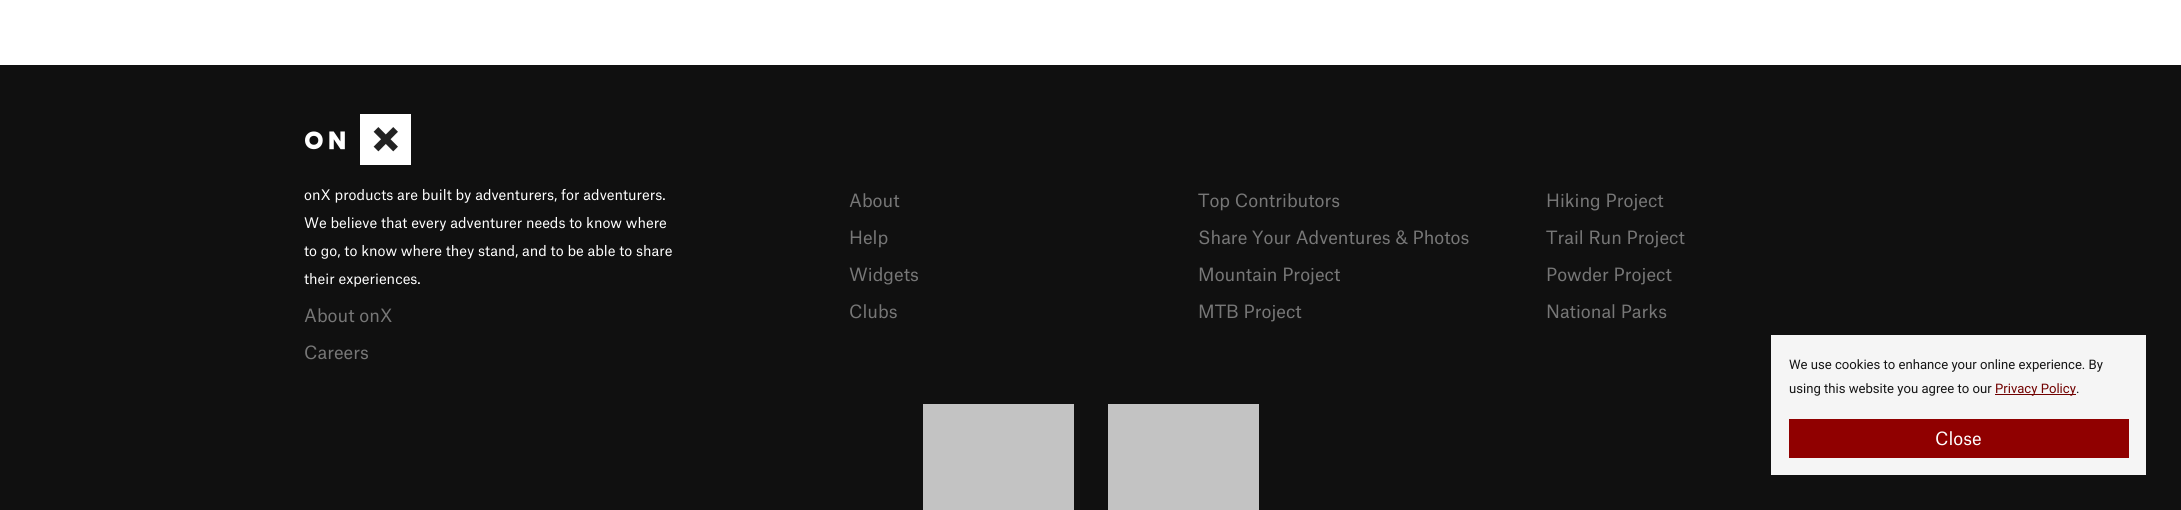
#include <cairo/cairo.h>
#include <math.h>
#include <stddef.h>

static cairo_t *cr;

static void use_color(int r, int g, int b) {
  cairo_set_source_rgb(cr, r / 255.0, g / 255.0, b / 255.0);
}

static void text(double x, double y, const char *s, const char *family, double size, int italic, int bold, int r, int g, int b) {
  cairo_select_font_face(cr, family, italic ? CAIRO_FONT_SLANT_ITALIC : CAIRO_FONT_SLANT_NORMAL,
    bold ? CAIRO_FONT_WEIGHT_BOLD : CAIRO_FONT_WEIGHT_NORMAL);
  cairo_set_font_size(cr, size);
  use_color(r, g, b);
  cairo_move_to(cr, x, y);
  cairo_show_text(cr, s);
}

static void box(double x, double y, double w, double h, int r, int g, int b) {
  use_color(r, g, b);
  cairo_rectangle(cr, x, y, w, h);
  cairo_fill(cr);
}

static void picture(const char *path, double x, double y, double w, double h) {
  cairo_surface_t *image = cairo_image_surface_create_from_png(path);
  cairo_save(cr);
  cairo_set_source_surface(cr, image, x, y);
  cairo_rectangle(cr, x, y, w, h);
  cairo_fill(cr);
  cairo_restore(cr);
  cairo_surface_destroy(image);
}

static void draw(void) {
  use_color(255, 255, 255);
  cairo_paint(cr);
  box(0, 65, 2181, 445, 16, 16, 16);
  picture("img_01.png", 305, 114, 106, 51);
  box(923, 404, 151, 106, 195, 195, 195);
  box(1108, 404, 151, 106, 195, 195, 195);
  box(1771, 335, 375, 140, 245, 245, 245);
  box(1995, 394, 81, 1, 113, 1, 0);
  box(1789, 419, 340, 39, 144, 0, 0);
  text(304, 200, "onX products are built by adventurers, for adventurers.", "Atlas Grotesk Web", 14, 0, 0, 255, 255, 255);
  text(304, 228, "We believe that every adventurer needs to know where", "Atlas Grotesk Web", 14, 0, 0, 255, 255, 255);
  text(304, 256, "to go, to know where they stand, and to be able to share", "Atlas Grotesk Web", 14, 0, 0, 255, 255, 255);
  text(304, 284, "their experiences.", "Atlas Grotesk Web", 14, 0, 0, 255, 255, 255);
  text(304, 322, "About onX", "Atlas Grotesk Web", 17.5, 0, 0, 119, 119, 119);
  text(304, 359, "Careers", "Atlas Grotesk Web", 17.5, 0, 0, 119, 119, 119);
  text(849, 207, "About", "Atlas Grotesk Web", 17.5, 0, 0, 119, 119, 119);
  text(1198, 207, "Top Contributors", "Atlas Grotesk Web", 17.5, 0, 0, 119, 119, 119);
  text(1546, 207, "Hiking Project", "Atlas Grotesk Web", 17.5, 0, 0, 119, 119, 119);
  text(849, 244, "Help", "Atlas Grotesk Web", 17.5, 0, 0, 119, 119, 119);
  text(1198, 244, "Share Your Adventures & Photos", "Atlas Grotesk Web", 17.5, 0, 0, 119, 119, 119);
  text(1546, 244, "Trail Run Project", "Atlas Grotesk Web", 17.5, 0, 0, 119, 119, 119);
  text(849, 281, "Widgets", "Atlas Grotesk Web", 17.5, 0, 0, 119, 119, 119);
  text(1198, 281, "Mountain Project", "Atlas Grotesk Web", 17.5, 0, 0, 119, 119, 119);
  text(1546, 281, "Powder Project", "Atlas Grotesk Web", 17.5, 0, 0, 119, 119, 119);
  text(849, 318, "Clubs", "Atlas Grotesk Web", 17.5, 0, 0, 119, 119, 119);
  text(1198, 318, "MTB Project", "Atlas Grotesk Web", 17.5, 0, 0, 119, 119, 119);
  text(1546, 318, "National Parks", "Atlas Grotesk Web", 17.5, 0, 0, 119, 119, 119);
  text(1789, 369, "We use cookies to enhance your online experience. By", "Roboto", 13.1, 0, 0, 21, 21, 21);
  text(1789, 393, "using this website you agree to our", "Roboto", 13.1, 0, 0, 21, 21, 21);
  text(1995, 393, "Privacy Policy", "Roboto", 13.1, 0, 0, 113, 1, 0);
  text(2076, 393, ".", "Roboto", 13.1, 0, 0, 21, 21, 21);
  text(1935, 445, "Close", "Atlas Grotesk Web", 17.5, 0, 0, 255, 255, 255);
}

int main(void) {
  cairo_surface_t *surface = cairo_image_surface_create(CAIRO_FORMAT_RGB24, 2181, 510);
  cr = cairo_create(surface);
  cairo_font_options_t *options = cairo_font_options_create();
  cairo_font_options_set_hint_metrics(options, CAIRO_HINT_METRICS_OFF);
  cairo_font_options_set_hint_style(options, CAIRO_HINT_STYLE_NONE);
  cairo_set_font_options(cr, options);
  cairo_set_miter_limit(cr, 4);
  draw();
  cairo_surface_write_to_png(surface, "out.png");
  cairo_font_options_destroy(options);
  cairo_destroy(cr);
  cairo_surface_destroy(surface);
  return 0;
}
